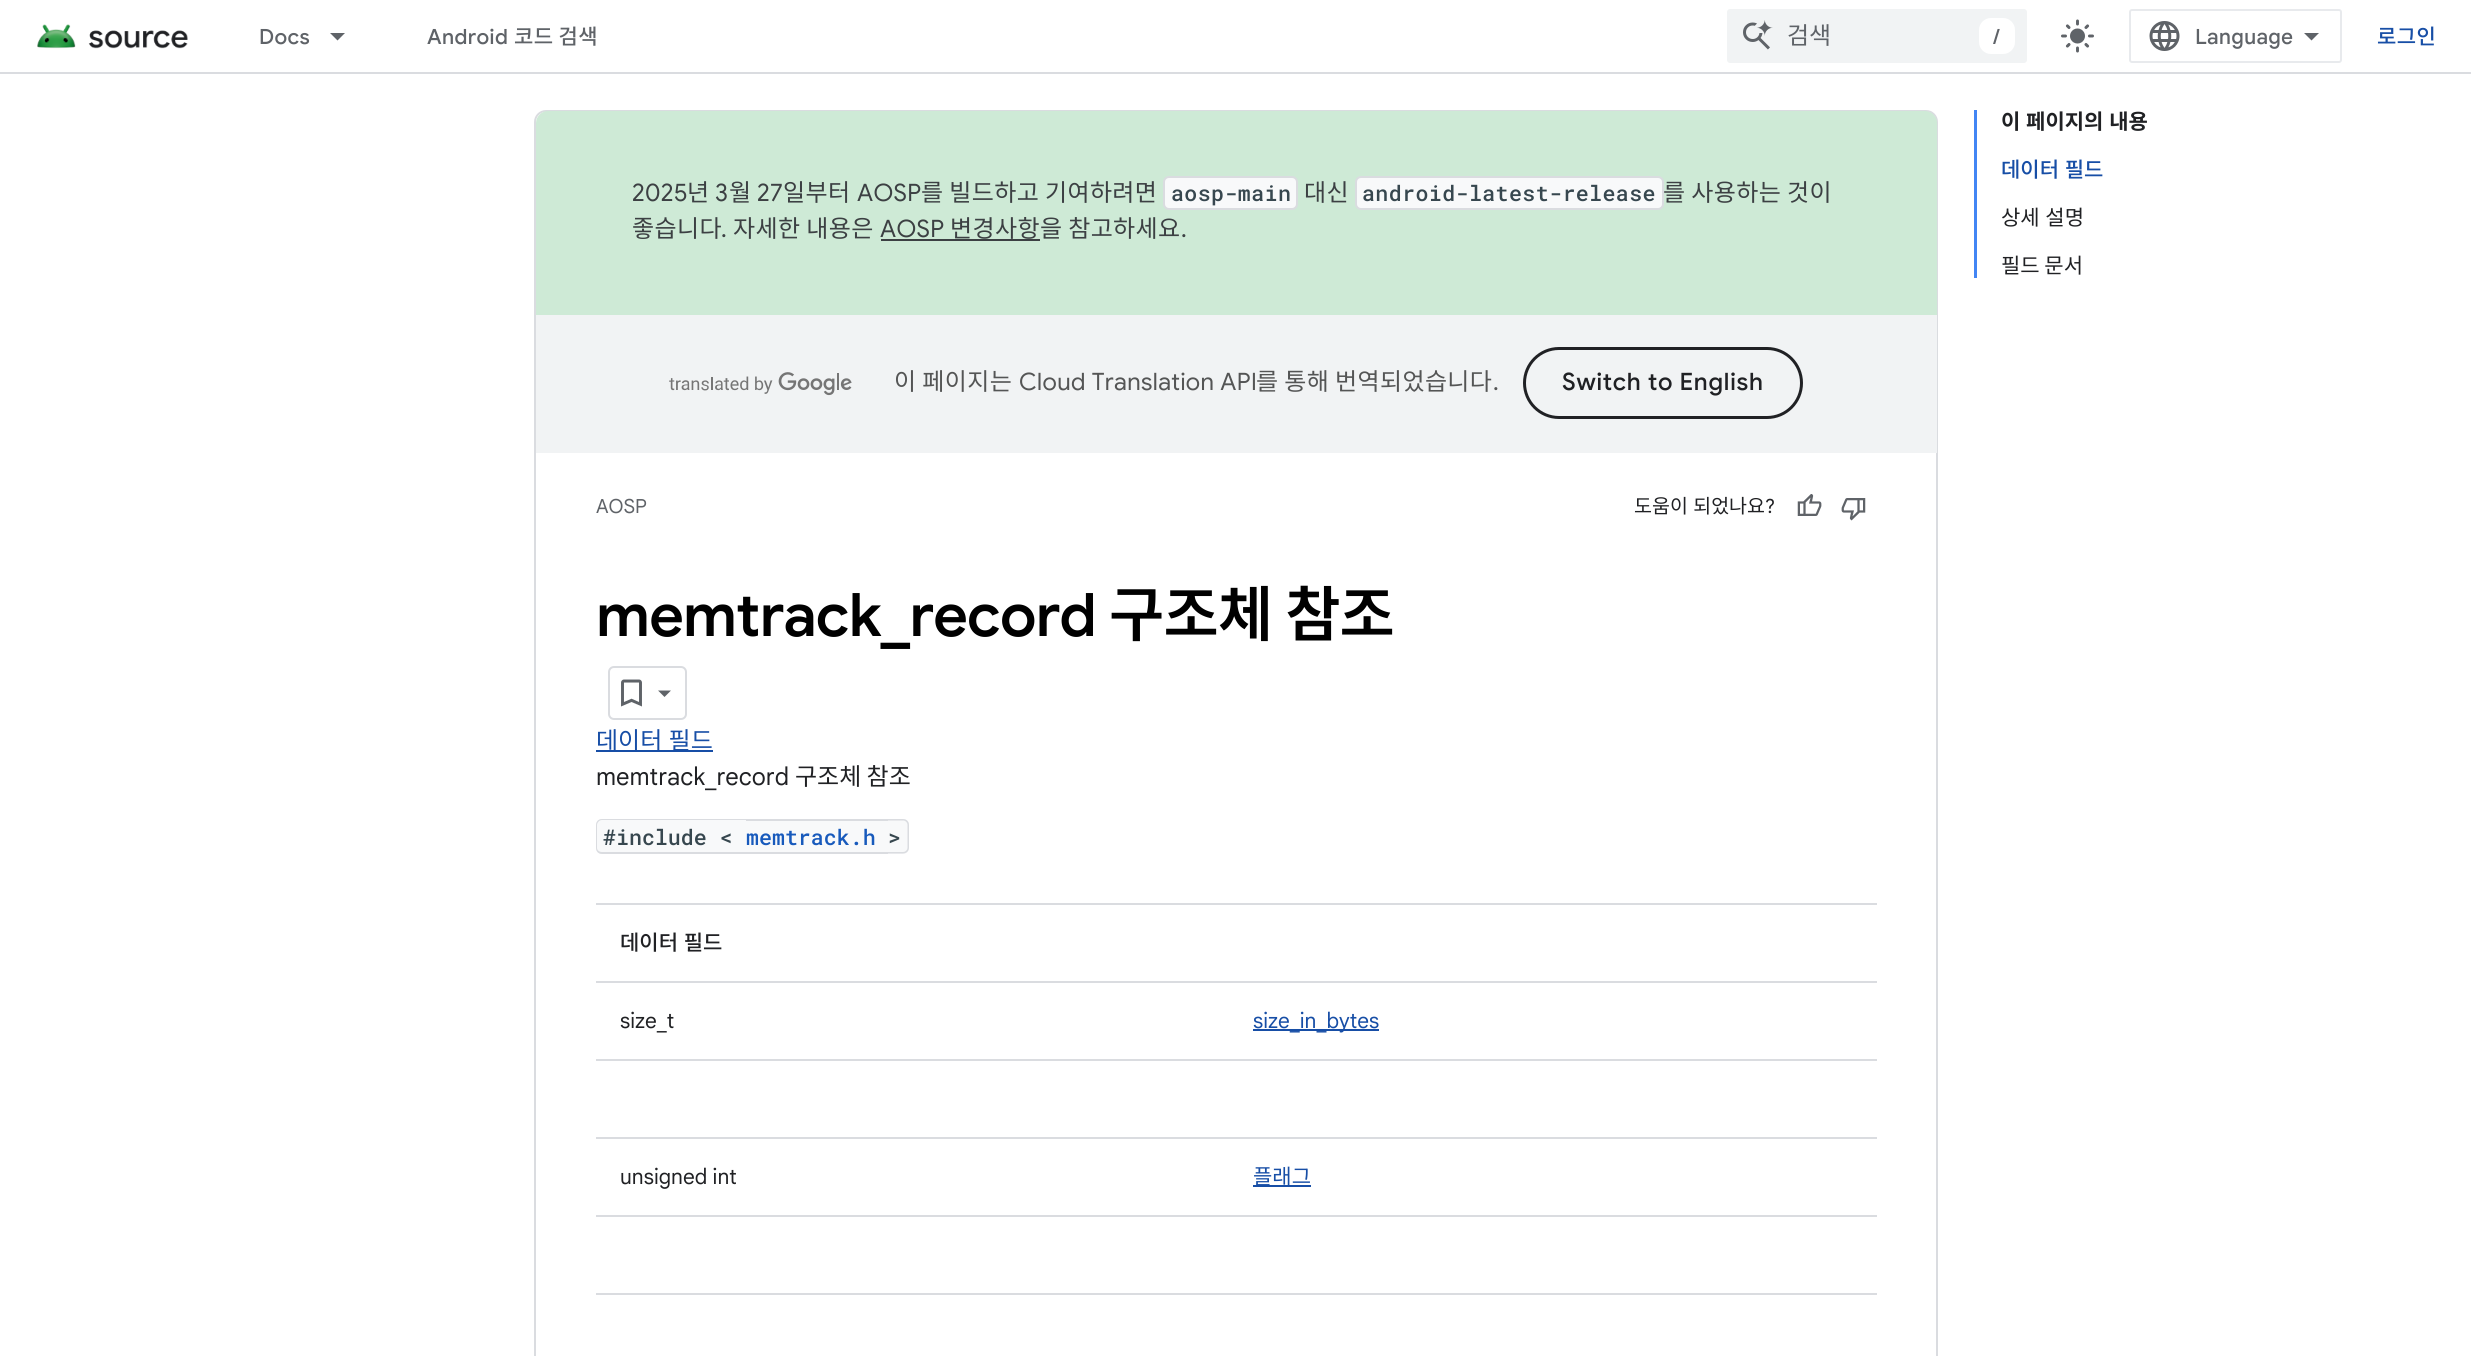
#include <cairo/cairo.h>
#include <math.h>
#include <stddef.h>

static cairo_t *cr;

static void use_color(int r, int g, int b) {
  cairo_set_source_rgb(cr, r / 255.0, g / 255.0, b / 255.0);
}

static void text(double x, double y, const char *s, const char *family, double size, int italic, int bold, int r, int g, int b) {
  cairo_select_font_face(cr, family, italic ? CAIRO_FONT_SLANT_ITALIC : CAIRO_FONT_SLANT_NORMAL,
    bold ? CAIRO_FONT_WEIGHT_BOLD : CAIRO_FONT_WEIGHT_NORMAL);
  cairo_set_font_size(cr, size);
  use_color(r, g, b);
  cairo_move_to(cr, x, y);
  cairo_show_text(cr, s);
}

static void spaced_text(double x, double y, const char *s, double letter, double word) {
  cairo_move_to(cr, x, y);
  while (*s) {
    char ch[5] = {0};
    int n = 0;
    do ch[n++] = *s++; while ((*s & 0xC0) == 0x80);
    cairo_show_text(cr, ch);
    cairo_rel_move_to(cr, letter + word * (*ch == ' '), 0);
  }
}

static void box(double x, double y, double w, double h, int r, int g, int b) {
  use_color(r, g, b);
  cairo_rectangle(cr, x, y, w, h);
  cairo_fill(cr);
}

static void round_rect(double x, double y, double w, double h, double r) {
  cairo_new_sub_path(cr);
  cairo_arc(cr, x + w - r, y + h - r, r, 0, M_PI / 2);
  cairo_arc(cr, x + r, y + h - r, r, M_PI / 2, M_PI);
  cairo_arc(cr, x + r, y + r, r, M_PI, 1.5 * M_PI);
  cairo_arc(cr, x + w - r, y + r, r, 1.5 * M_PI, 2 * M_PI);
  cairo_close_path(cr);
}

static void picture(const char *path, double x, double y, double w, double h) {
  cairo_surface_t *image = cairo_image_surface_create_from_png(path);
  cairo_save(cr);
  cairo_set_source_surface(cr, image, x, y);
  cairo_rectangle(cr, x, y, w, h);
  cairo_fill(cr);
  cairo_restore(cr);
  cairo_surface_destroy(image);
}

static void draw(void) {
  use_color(255, 255, 255);
  cairo_paint(cr);
  box(0, 72, 2471, 2, 218, 220, 224);
  picture("img_01.png", 37, 24, 151, 25);
  use_color(95, 99, 104);
  cairo_new_path(cr);
  cairo_move_to(cr, 330, 33);
  cairo_line_to(cr, 345, 33);
  cairo_line_to(cr, 337.5, 40.5);
  cairo_close_path(cr);
  cairo_fill(cr);
  use_color(241, 243, 244);
  round_rect(1727, 9, 300, 54, 3);
  cairo_fill(cr);
  picture("img_02.png", 1743, 20, 30, 30);
  use_color(255, 255, 255);
  round_rect(1979, 18, 36, 36, 12);
  cairo_fill(cr);
  picture("img_03.png", 2061, 19, 33, 34);
  round_rect(2130, 10, 211, 52, 2);
  use_color(232, 234, 237);
  cairo_stroke(cr);
  picture("img_04.png", 2149, 21, 31, 30);
  use_color(95, 99, 104);
  cairo_new_path(cr);
  cairo_move_to(cr, 2311.5, 40.5);
  cairo_line_to(cr, 2304, 33);
  cairo_line_to(cr, 2319, 33);
  cairo_close_path(cr);
  cairo_fill(cr);
  round_rect(535, 111, 1402, 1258, 11);
  use_color(218, 220, 224);
  cairo_stroke(cr);
  use_color(206, 234, 214);
  cairo_new_path(cr);
  cairo_move_to(cr, 548, 111);
  cairo_line_to(cr, 1925, 111);
  cairo_curve_to(cr, 1931.5, 111, 1937, 116.5, 1937, 123);
  cairo_line_to(cr, 1937, 315);
  cairo_line_to(cr, 536, 315);
  cairo_line_to(cr, 536, 123);
  cairo_curve_to(cr, 536, 116.5, 541.5, 111, 548, 111);
  cairo_close_path(cr);
  cairo_fill(cr);
  use_color(248, 249, 250);
  round_rect(1164, 177, 133, 32, 5);
  cairo_fill_preserve(cr);
  use_color(218, 220, 224);
  cairo_stroke(cr);
  use_color(248, 249, 250);
  round_rect(1356, 177, 307, 32, 5);
  cairo_fill_preserve(cr);
  use_color(218, 220, 224);
  cairo_stroke(cr);
  box(881, 239, 159, 2, 60, 64, 67);
  box(536, 315, 1401, 138, 241, 243, 244);
  picture("img_05.png", 669, 372, 183, 24);
  round_rect(1524.5, 348.5, 277, 69, 34.5);
  use_color(32, 33, 36);
  cairo_set_line_width(cr, 3);
  cairo_stroke(cr);
  picture("img_06.png", 1797, 494, 25, 22);
  picture("img_07.png", 1841, 498, 25, 23);
  round_rect(609, 667, 77, 52, 5);
  use_color(218, 220, 224);
  cairo_set_line_width(cr, 2);
  cairo_stroke(cr);
  picture("img_08.png", 621, 679, 21, 28);
  use_color(95, 99, 104);
  cairo_new_path(cr);
  cairo_move_to(cr, 658, 690.5);
  cairo_line_to(cr, 671, 690.5);
  cairo_line_to(cr, 664.5, 697);
  cairo_close_path(cr);
  cairo_fill(cr);
  box(596, 750, 117, 2, 23, 78, 166);
  use_color(248, 249, 250);
  cairo_new_path(cr);
  cairo_move_to(cr, 602, 819);
  cairo_line_to(cr, 746, 819);
  cairo_line_to(cr, 746, 854);
  cairo_line_to(cr, 602, 854);
  cairo_curve_to(cr, 598.5, 854, 596, 851.5, 596, 848);
  cairo_line_to(cr, 596, 825);
  cairo_curve_to(cr, 596, 821.5, 598.5, 819, 602, 819);
  cairo_close_path(cr);
  cairo_fill(cr);
  use_color(218, 220, 224);
  cairo_set_fill_rule(cr, CAIRO_FILL_RULE_EVEN_ODD);
  cairo_new_path(cr);
  cairo_move_to(cr, 602, 819);
  cairo_line_to(cr, 746, 819);
  cairo_line_to(cr, 746, 854);
  cairo_line_to(cr, 602, 854);
  cairo_curve_to(cr, 598, 854, 596, 851, 596, 848);
  cairo_line_to(cr, 596, 825);
  cairo_curve_to(cr, 596, 822, 598, 819, 602, 819);
  cairo_close_path(cr);
  cairo_move_to(cr, 602, 820);
  cairo_line_to(cr, 746, 820);
  cairo_line_to(cr, 746, 852);
  cairo_line_to(cr, 602, 852);
  cairo_curve_to(cr, 599, 852, 597, 850, 597, 848);
  cairo_line_to(cr, 597, 825);
  cairo_curve_to(cr, 597, 823, 599, 820, 602, 820);
  cairo_close_path(cr);
  cairo_fill(cr);
  box(746, 821, 142, 31, 248, 249, 250);
  box(746, 819, 142, 2, 218, 220, 224);
  box(746, 852, 142, 2, 218, 220, 224);
  use_color(248, 249, 250);
  cairo_new_path(cr);
  cairo_move_to(cr, 888, 819);
  cairo_line_to(cr, 903, 819);
  cairo_curve_to(cr, 906.5, 819, 909, 821.5, 909, 825);
  cairo_line_to(cr, 909, 848);
  cairo_curve_to(cr, 909, 851.5, 906.5, 854, 903, 854);
  cairo_line_to(cr, 888, 854);
  cairo_close_path(cr);
  cairo_fill(cr);
  use_color(218, 220, 224);
  cairo_new_path(cr);
  cairo_move_to(cr, 888, 819);
  cairo_line_to(cr, 903, 819);
  cairo_curve_to(cr, 906.5, 819, 909, 821.5, 909, 825);
  cairo_line_to(cr, 909, 847.5);
  cairo_curve_to(cr, 909, 851, 906.5, 853.5, 903, 853.5);
  cairo_line_to(cr, 888, 853.5);
  cairo_close_path(cr);
  cairo_move_to(cr, 888, 820.5);
  cairo_line_to(cr, 903, 820.5);
  cairo_curve_to(cr, 905.5, 820.5, 907.5, 822.5, 907.5, 825);
  cairo_line_to(cr, 907.5, 847.5);
  cairo_curve_to(cr, 907.5, 850, 905.5, 852, 903, 852);
  cairo_line_to(cr, 888, 852);
  cairo_close_path(cr);
  cairo_fill(cr);
  box(596, 903, 1281, 2, 218, 220, 224);
  box(596, 981, 1281, 2, 218, 220, 224);
  box(596, 1059, 1281, 2, 218, 220, 224);
  box(1253, 1029, 126, 2, 23, 78, 166);
  box(596, 1137, 1281, 2, 218, 220, 224);
  box(596, 1215, 1281, 2, 218, 220, 224);
  box(1253, 1185, 58, 2, 23, 78, 166);
  box(596, 1293, 1281, 2, 218, 220, 224);
  box(1974, 110, 3, 168, 66, 133, 244);
  cairo_select_font_face(cr, "Google Sans Medium", CAIRO_FONT_SLANT_NORMAL, CAIRO_FONT_WEIGHT_NORMAL);
  cairo_set_font_size(cr, 21);
  use_color(95, 99, 104);
  spaced_text(259, 44, "Docs", 0.4, 0);
  spaced_text(427, 44, "Android", 0.4, 0);
  cairo_select_font_face(cr, "Noto Sans KR Medium", CAIRO_FONT_SLANT_NORMAL, CAIRO_FONT_WEIGHT_NORMAL);
  spaced_text(514, 44, "코드 검색", 0.4, 0);
  text(1787, 44, "검색", "Noto Sans KR", 24, 0, 0, 95, 99, 104);
  text(1993, 44, "/", "Google Sans Medium", 21, 0, 0, 95, 99, 104);
  text(2195, 44, "Language", "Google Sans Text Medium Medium", 21, 0, 0, 95, 99, 104);
  cairo_select_font_face(cr, "Noto Sans KR Medium", CAIRO_FONT_SLANT_NORMAL, CAIRO_FONT_WEIGHT_NORMAL);
  use_color(23, 78, 166);
  spaced_text(2377, 44, "로그인", 0.4, 0);
  cairo_select_font_face(cr, "Google Sans", CAIRO_FONT_SLANT_NORMAL, CAIRO_FONT_WEIGHT_NORMAL);
  cairo_set_font_size(cr, 24);
  use_color(60, 64, 67);
  spaced_text(632, 201, "2025", 0.4, 0);
  cairo_select_font_face(cr, "Noto Sans KR", CAIRO_FONT_SLANT_NORMAL, CAIRO_FONT_WEIGHT_NORMAL);
  spaced_text(687, 201, "년", 0.4, 0);
  cairo_select_font_face(cr, "Google Sans", CAIRO_FONT_SLANT_NORMAL, CAIRO_FONT_WEIGHT_NORMAL);
  spaced_text(715, 201, "3", 0.4, 0);
  cairo_select_font_face(cr, "Noto Sans KR", CAIRO_FONT_SLANT_NORMAL, CAIRO_FONT_WEIGHT_NORMAL);
  spaced_text(729, 201, "월", 0.4, 0);
  cairo_select_font_face(cr, "Google Sans", CAIRO_FONT_SLANT_NORMAL, CAIRO_FONT_WEIGHT_NORMAL);
  spaced_text(757, 201, "27", 0.4, 0);
  cairo_select_font_face(cr, "Noto Sans KR", CAIRO_FONT_SLANT_NORMAL, CAIRO_FONT_WEIGHT_NORMAL);
  spaced_text(783, 201, "일부터", 0.4, 0);
  cairo_select_font_face(cr, "Google Sans", CAIRO_FONT_SLANT_NORMAL, CAIRO_FONT_WEIGHT_NORMAL);
  spaced_text(857, 201, "AOSP", 0.4, 0);
  cairo_select_font_face(cr, "Noto Sans KR", CAIRO_FONT_SLANT_NORMAL, CAIRO_FONT_WEIGHT_NORMAL);
  spaced_text(921, 201, "를 빌드하고 기여하려면", 0.4, 0);
  cairo_select_font_face(cr, "Roboto Mono Medium", CAIRO_FONT_SLANT_NORMAL, CAIRO_FONT_WEIGHT_NORMAL);
  cairo_set_font_size(cr, 21.6);
  use_color(55, 71, 79);
  spaced_text(1171, 201, "aosp-main", 0.4, 0);
  cairo_select_font_face(cr, "Noto Sans KR", CAIRO_FONT_SLANT_NORMAL, CAIRO_FONT_WEIGHT_NORMAL);
  cairo_set_font_size(cr, 24);
  use_color(60, 64, 67);
  spaced_text(1304, 201, "대신", 0.4, 0);
  cairo_select_font_face(cr, "Roboto Mono Medium", CAIRO_FONT_SLANT_NORMAL, CAIRO_FONT_WEIGHT_NORMAL);
  cairo_set_font_size(cr, 21.6);
  use_color(55, 71, 79);
  spaced_text(1362, 201, "android-latest-release", 0.4, 0);
  cairo_select_font_face(cr, "Noto Sans KR", CAIRO_FONT_SLANT_NORMAL, CAIRO_FONT_WEIGHT_NORMAL);
  cairo_set_font_size(cr, 24);
  use_color(60, 64, 67);
  spaced_text(1663, 201, "를 사용하는 것이", 0.4, 0);
  spaced_text(632, 237, "좋습니다", 0.4, 0);
  cairo_select_font_face(cr, "Google Sans", CAIRO_FONT_SLANT_NORMAL, CAIRO_FONT_WEIGHT_NORMAL);
  spaced_text(721, 237, ".", 0.4, 0);
  cairo_select_font_face(cr, "Noto Sans KR", CAIRO_FONT_SLANT_NORMAL, CAIRO_FONT_WEIGHT_NORMAL);
  spaced_text(733, 237, "자세한 내용은", 0.4, 0);
  cairo_select_font_face(cr, "Google Sans", CAIRO_FONT_SLANT_NORMAL, CAIRO_FONT_WEIGHT_NORMAL);
  spaced_text(880, 237, "AOSP", 0.4, 0);
  cairo_select_font_face(cr, "Noto Sans KR", CAIRO_FONT_SLANT_NORMAL, CAIRO_FONT_WEIGHT_NORMAL);
  spaced_text(950, 237, "변경사항을 참고하세요", 0.4, 0);
  cairo_select_font_face(cr, "Google Sans", CAIRO_FONT_SLANT_NORMAL, CAIRO_FONT_WEIGHT_NORMAL);
  spaced_text(1181, 237, ".", 0.4, 0);
  cairo_select_font_face(cr, "Noto Sans KR", CAIRO_FONT_SLANT_NORMAL, CAIRO_FONT_WEIGHT_NORMAL);
  use_color(84, 85, 85);
  spaced_text(894, 390, "이 페이지는", 0.4, 0);
  cairo_select_font_face(cr, "Google Sans", CAIRO_FONT_SLANT_NORMAL, CAIRO_FONT_WEIGHT_NORMAL);
  spaced_text(1019, 390, "Cloud Translation API", 0.4, 0);
  cairo_select_font_face(cr, "Noto Sans KR", CAIRO_FONT_SLANT_NORMAL, CAIRO_FONT_WEIGHT_NORMAL);
  spaced_text(1256, 390, "를 통해 번역되었습니다", 0.4, 0);
  cairo_select_font_face(cr, "Google Sans", CAIRO_FONT_SLANT_NORMAL, CAIRO_FONT_WEIGHT_NORMAL);
  spaced_text(1493, 390, ".", 0.4, 0);
  cairo_select_font_face(cr, "Google Sans Medium", CAIRO_FONT_SLANT_NORMAL, CAIRO_FONT_WEIGHT_NORMAL);
  use_color(32, 33, 36);
  spaced_text(1562, 390, "Switch to English", 0.75, 0);
  text(596, 513, "AOSP", "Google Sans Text", 19.5, 0, 0, 95, 99, 104);
  cairo_select_font_face(cr, "Noto Sans KR", CAIRO_FONT_SLANT_NORMAL, CAIRO_FONT_WEIGHT_NORMAL);
  use_color(32, 33, 36);
  spaced_text(1634, 513, "도움이 되었나요", 0, 1);
  text(1765, 513, "?", "Google Sans Text", 19.5, 0, 0, 32, 33, 36);
  cairo_select_font_face(cr, "Google Sans SemiBold", CAIRO_FONT_SLANT_NORMAL, CAIRO_FONT_WEIGHT_NORMAL);
  cairo_set_font_size(cr, 60);
  use_color(0, 0, 0);
  spaced_text(596, 636, "memtrack_record", -0.75, 0);
  cairo_select_font_face(cr, "Noto Sans KR SemiBold", CAIRO_FONT_SLANT_NORMAL, CAIRO_FONT_WEIGHT_NORMAL);
  spaced_text(1109, 636, "구조체 참조", -0.75, 0);
  cairo_select_font_face(cr, "Noto Sans KR", CAIRO_FONT_SLANT_NORMAL, CAIRO_FONT_WEIGHT_NORMAL);
  cairo_set_font_size(cr, 24);
  use_color(23, 78, 166);
  spaced_text(596, 749, "데이터 필드", 0, 1);
  text(596, 785, "memtrack_record", "Google Sans Text", 24, 0, 0, 32, 33, 36);
  text(795, 785, "구조체 참조", "Noto Sans KR", 24, 0, 0, 32, 33, 36);
  text(603, 845, "#include <", "Roboto Mono Medium", 21.6, 0, 0, 55, 71, 79);
  text(746, 845, "memtrack.h", "Roboto Mono Medium", 21.6, 0, 0, 24, 90, 188);
  text(888, 845, ">", "Roboto Mono Medium", 21.6, 0, 0, 55, 71, 79);
  cairo_select_font_face(cr, "Noto Sans KR Medium", CAIRO_FONT_SLANT_NORMAL, CAIRO_FONT_WEIGHT_NORMAL);
  cairo_set_font_size(cr, 21);
  use_color(32, 33, 36);
  spaced_text(620, 950, "데이터 필드", 0, 1);
  text(620, 1028, "size_t", "Google Sans Text", 21, 0, 0, 32, 33, 36);
  text(1253, 1028, "size_in_bytes", "Google Sans Text", 21, 0, 0, 23, 78, 166);
  text(620, 1184, "unsigned int", "Google Sans Text", 21, 0, 0, 32, 33, 36);
  text(1253, 1184, "플래그", "Noto Sans KR", 21, 0, 0, 23, 78, 166);
  cairo_select_font_face(cr, "Noto Sans KR", CAIRO_FONT_SLANT_NORMAL, CAIRO_FONT_WEIGHT_BOLD);
  use_color(32, 33, 36);
  spaced_text(2001, 129, "이 페이지의 내용", 0, 1);
  cairo_select_font_face(cr, "Noto Sans KR Medium", CAIRO_FONT_SLANT_NORMAL, CAIRO_FONT_WEIGHT_NORMAL);
  use_color(23, 78, 166);
  spaced_text(2001, 177, "데이터 필드", 0, 1);
  cairo_select_font_face(cr, "Noto Sans KR", CAIRO_FONT_SLANT_NORMAL, CAIRO_FONT_WEIGHT_NORMAL);
  use_color(32, 33, 36);
  spaced_text(2001, 225, "상세 설명", 0, 1);
  text(2001, 273, "필드 문서", "Noto Sans KR", 21, 0, 0, 32, 33, 36);
}

int main(void) {
  cairo_surface_t *surface = cairo_image_surface_create(CAIRO_FORMAT_RGB24, 2471, 1356);
  cr = cairo_create(surface);
  cairo_font_options_t *options = cairo_font_options_create();
  cairo_font_options_set_hint_metrics(options, CAIRO_HINT_METRICS_OFF);
  cairo_font_options_set_hint_style(options, CAIRO_HINT_STYLE_NONE);
  cairo_set_font_options(cr, options);
  cairo_set_miter_limit(cr, 4);
  draw();
  cairo_surface_write_to_png(surface, "out.png");
  cairo_font_options_destroy(options);
  cairo_destroy(cr);
  cairo_surface_destroy(surface);
  return 0;
}
